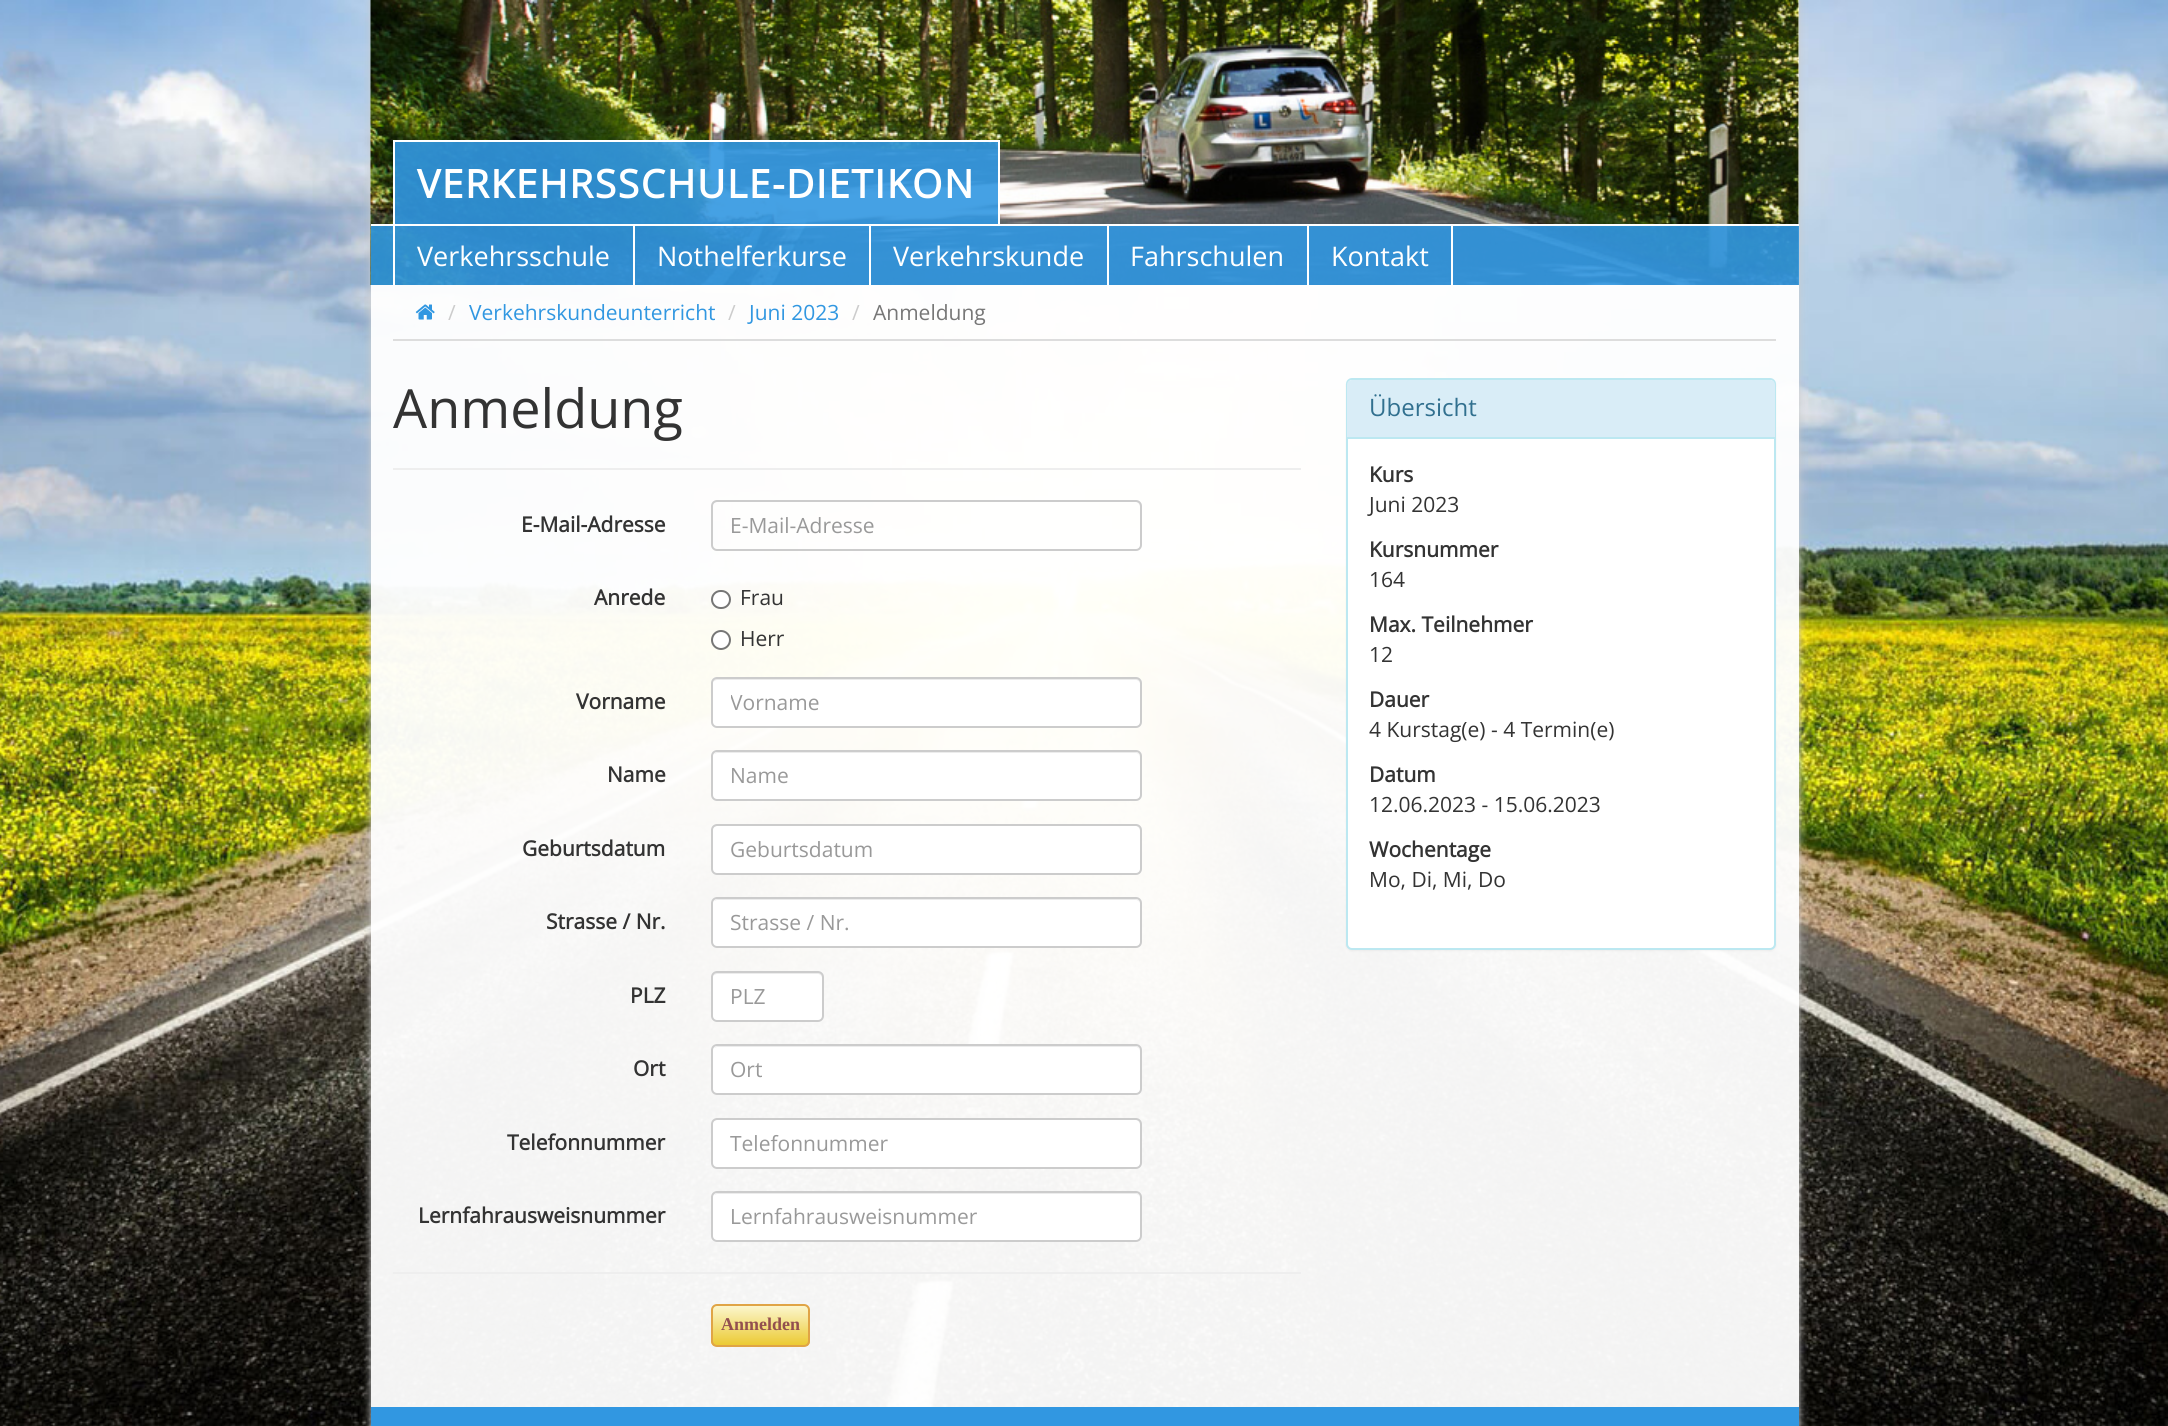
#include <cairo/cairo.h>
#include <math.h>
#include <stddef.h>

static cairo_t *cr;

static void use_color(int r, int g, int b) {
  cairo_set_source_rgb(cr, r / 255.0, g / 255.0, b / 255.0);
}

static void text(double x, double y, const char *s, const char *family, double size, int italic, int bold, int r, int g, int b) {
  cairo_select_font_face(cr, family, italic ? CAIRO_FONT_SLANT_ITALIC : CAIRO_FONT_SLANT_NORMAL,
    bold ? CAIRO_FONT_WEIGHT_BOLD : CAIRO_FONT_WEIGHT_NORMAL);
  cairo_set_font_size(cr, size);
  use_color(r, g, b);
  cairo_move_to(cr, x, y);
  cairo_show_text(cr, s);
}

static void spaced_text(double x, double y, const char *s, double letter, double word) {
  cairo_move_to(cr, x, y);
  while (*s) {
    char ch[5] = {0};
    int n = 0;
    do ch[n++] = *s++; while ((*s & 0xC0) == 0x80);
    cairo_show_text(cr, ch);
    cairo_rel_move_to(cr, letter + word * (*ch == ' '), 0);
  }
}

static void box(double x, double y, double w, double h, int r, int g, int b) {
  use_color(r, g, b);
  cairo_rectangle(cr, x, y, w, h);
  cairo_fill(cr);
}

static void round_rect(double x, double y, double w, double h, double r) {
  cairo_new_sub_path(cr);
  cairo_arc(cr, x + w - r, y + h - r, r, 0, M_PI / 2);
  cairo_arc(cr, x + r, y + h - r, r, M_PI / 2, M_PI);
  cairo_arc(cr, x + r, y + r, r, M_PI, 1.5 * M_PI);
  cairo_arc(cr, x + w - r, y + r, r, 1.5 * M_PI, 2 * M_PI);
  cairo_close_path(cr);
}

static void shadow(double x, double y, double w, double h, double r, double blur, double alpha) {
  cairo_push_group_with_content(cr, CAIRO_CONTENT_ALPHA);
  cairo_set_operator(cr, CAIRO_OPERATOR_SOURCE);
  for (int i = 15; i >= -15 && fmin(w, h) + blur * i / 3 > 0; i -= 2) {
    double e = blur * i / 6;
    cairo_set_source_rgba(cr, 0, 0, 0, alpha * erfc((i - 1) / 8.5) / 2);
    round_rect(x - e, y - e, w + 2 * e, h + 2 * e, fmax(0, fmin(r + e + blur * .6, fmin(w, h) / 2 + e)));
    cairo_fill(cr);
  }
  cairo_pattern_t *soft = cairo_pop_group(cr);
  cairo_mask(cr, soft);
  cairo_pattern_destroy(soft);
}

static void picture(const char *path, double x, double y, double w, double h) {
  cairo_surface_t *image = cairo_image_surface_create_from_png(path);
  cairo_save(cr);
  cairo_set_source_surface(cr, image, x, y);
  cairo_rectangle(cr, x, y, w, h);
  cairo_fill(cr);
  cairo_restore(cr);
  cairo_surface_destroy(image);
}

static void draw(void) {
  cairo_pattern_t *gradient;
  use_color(255, 255, 255);
  cairo_paint(cr);
  picture("img_01.png", 0, 0, 2168, 1426);
  cairo_save(cr);
  cairo_set_fill_rule(cr, CAIRO_FILL_RULE_EVEN_ODD);
  cairo_new_path(cr);
  cairo_move_to(cr, 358, 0);
  cairo_line_to(cr, 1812, 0);
  cairo_line_to(cr, 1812, 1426);
  cairo_line_to(cr, 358, 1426);
  cairo_close_path(cr);
  cairo_move_to(cr, 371, 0);
  cairo_line_to(cr, 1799, 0);
  cairo_line_to(cr, 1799, 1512);
  cairo_line_to(cr, 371, 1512);
  cairo_close_path(cr);
  cairo_clip(cr);
  use_color(204, 204, 204);
  shadow(371, 0, 1428, 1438, 0, 4, 1);
  cairo_restore(cr);
  cairo_set_source_rgba(cr, 1, 1, 1, 0.95);
  cairo_rectangle(cr, 371, 0, 1428, 1407);
  cairo_fill(cr);
  picture("img_02.png", 370, 0, 1429, 285);
  cairo_set_source_rgba(cr, 0.192, 0.592, 0.882, 0.9);
  cairo_rectangle(cr, 395, 142, 603, 82);
  cairo_fill(cr);
  box(393, 140, 606, 2, 255, 255, 255);
  box(998, 140, 2, 85, 255, 255, 255);
  box(393, 140, 2, 85, 255, 255, 255);
  cairo_set_source_rgba(cr, 0.192, 0.592, 0.882, 0.9);
  cairo_rectangle(cr, 371, 226, 1428, 59);
  cairo_fill(cr);
  box(371, 224, 1428, 2, 255, 255, 255);
  box(633, 225, 2, 60, 255, 255, 255);
  box(393, 225, 2, 60, 255, 255, 255);
  box(869, 225, 2, 60, 255, 255, 255);
  box(1107, 225, 2, 60, 255, 255, 255);
  box(1307, 225, 2, 60, 255, 255, 255);
  box(1451, 225, 2, 60, 255, 255, 255);
  box(393, 339, 1383, 2, 221, 221, 221);
  picture("img_03.png", 415, 304, 20, 16);
  box(393, 468, 908, 2, 238, 238, 238);
  use_color(236, 236, 236);
  cairo_new_path(cr);
  cairo_move_to(cr, 717, 502);
  cairo_line_to(cr, 1136, 502);
  cairo_curve_to(cr, 1138, 502, 1140, 505, 1140, 507);
  cairo_line_to(cr, 1140, 506);
  cairo_curve_to(cr, 1140, 503, 1138, 501, 1135, 501);
  cairo_line_to(cr, 718, 501);
  cairo_curve_to(cr, 716, 501, 714, 502, 713, 504);
  cairo_curve_to(cr, 714, 503, 716, 502, 717, 502);
  cairo_close_path(cr);
  cairo_fill(cr);
  round_rect(712, 501, 429, 49, 5);
  use_color(204, 204, 204);
  cairo_stroke(cr);
  use_color(255, 255, 255);
  round_rect(712, 591, 18, 17, 8.5);
  cairo_fill_preserve(cr);
  use_color(118, 118, 118);
  cairo_stroke(cr);
  use_color(255, 255, 255);
  cairo_arc(cr, 721, 640, 9, 0, 2 * M_PI);
  cairo_fill_preserve(cr);
  use_color(118, 118, 118);
  cairo_stroke(cr);
  use_color(255, 255, 255);
  round_rect(711, 677, 431, 51, 6);
  cairo_fill(cr);
  use_color(236, 236, 236);
  cairo_new_path(cr);
  cairo_move_to(cr, 717, 680);
  cairo_line_to(cr, 1136, 680);
  cairo_curve_to(cr, 1138, 680, 1140, 682, 1140, 684);
  cairo_line_to(cr, 1140, 683);
  cairo_curve_to(cr, 1140, 680, 1138, 678, 1135, 678);
  cairo_line_to(cr, 718, 678);
  cairo_curve_to(cr, 716, 678, 714, 680, 713, 682);
  cairo_curve_to(cr, 714, 681, 716, 680, 717, 680);
  cairo_close_path(cr);
  cairo_fill(cr);
  round_rect(712, 678, 429, 49, 5);
  use_color(204, 204, 204);
  cairo_stroke(cr);
  use_color(255, 255, 255);
  round_rect(711, 750, 431, 51, 6);
  cairo_fill(cr);
  use_color(236, 236, 236);
  cairo_new_path(cr);
  cairo_move_to(cr, 717, 753);
  cairo_line_to(cr, 1136, 753);
  cairo_curve_to(cr, 1138, 753, 1140, 755, 1140, 758);
  cairo_line_to(cr, 1140, 757);
  cairo_curve_to(cr, 1140, 754, 1138, 752, 1135, 752);
  cairo_line_to(cr, 718, 752);
  cairo_curve_to(cr, 716, 752, 715, 753, 714, 754);
  cairo_close_path(cr);
  cairo_fill(cr);
  round_rect(712, 751, 429, 49, 5);
  use_color(204, 204, 204);
  cairo_stroke(cr);
  use_color(255, 255, 255);
  round_rect(711, 824, 431, 51, 6);
  cairo_fill(cr);
  use_color(236, 236, 236);
  cairo_new_path(cr);
  cairo_move_to(cr, 717, 826);
  cairo_line_to(cr, 1136, 826);
  cairo_curve_to(cr, 1138, 826, 1140, 829, 1140, 831);
  cairo_line_to(cr, 1140, 830);
  cairo_curve_to(cr, 1140, 827, 1138, 825, 1135, 825);
  cairo_line_to(cr, 718, 825);
  cairo_curve_to(cr, 716, 825, 714, 826, 713, 828);
  cairo_curve_to(cr, 714, 827, 716, 826, 717, 826);
  cairo_close_path(cr);
  cairo_fill(cr);
  round_rect(712, 825, 429, 49, 5);
  use_color(204, 204, 204);
  cairo_stroke(cr);
  use_color(255, 255, 255);
  round_rect(711, 897, 431, 51, 6);
  cairo_fill(cr);
  use_color(236, 236, 236);
  cairo_new_path(cr);
  cairo_move_to(cr, 717, 900);
  cairo_line_to(cr, 1136, 900);
  cairo_curve_to(cr, 1138, 900, 1140, 902, 1140, 904);
  cairo_curve_to(cr, 1140, 901, 1138, 899, 1135, 899);
  cairo_line_to(cr, 718, 899);
  cairo_curve_to(cr, 716, 899, 715, 900, 714, 901);
  cairo_close_path(cr);
  cairo_fill(cr);
  round_rect(712, 898, 429, 49, 5);
  use_color(204, 204, 204);
  cairo_stroke(cr);
  use_color(255, 255, 255);
  round_rect(711, 971, 113, 51, 6);
  cairo_fill(cr);
  use_color(236, 236, 236);
  cairo_new_path(cr);
  cairo_move_to(cr, 717, 974);
  cairo_line_to(cr, 818, 974);
  cairo_curve_to(cr, 820, 974, 822, 976, 822, 978);
  cairo_line_to(cr, 822, 977);
  cairo_curve_to(cr, 822, 974, 820, 972, 817, 972);
  cairo_line_to(cr, 718, 972);
  cairo_curve_to(cr, 716, 972, 714, 974, 713, 976);
  cairo_curve_to(cr, 714, 975, 716, 974, 717, 974);
  cairo_close_path(cr);
  cairo_fill(cr);
  round_rect(712, 972, 111, 49, 5);
  use_color(204, 204, 204);
  cairo_stroke(cr);
  use_color(255, 255, 255);
  round_rect(711, 1044, 431, 51, 6);
  cairo_fill(cr);
  use_color(236, 236, 236);
  cairo_new_path(cr);
  cairo_move_to(cr, 717, 1047);
  cairo_line_to(cr, 1136, 1047);
  cairo_curve_to(cr, 1138, 1047, 1140, 1049, 1140, 1052);
  cairo_line_to(cr, 1140, 1051);
  cairo_curve_to(cr, 1140, 1048, 1138, 1046, 1135, 1046);
  cairo_line_to(cr, 718, 1046);
  cairo_curve_to(cr, 716, 1046, 715, 1047, 714, 1048);
  cairo_close_path(cr);
  cairo_fill(cr);
  round_rect(712, 1045, 429, 49, 5);
  use_color(204, 204, 204);
  cairo_stroke(cr);
  use_color(255, 255, 255);
  round_rect(711, 1118, 431, 51, 6);
  cairo_fill(cr);
  use_color(236, 236, 236);
  cairo_new_path(cr);
  cairo_move_to(cr, 717, 1120);
  cairo_line_to(cr, 1136, 1120);
  cairo_curve_to(cr, 1138, 1120, 1140, 1123, 1140, 1125);
  cairo_line_to(cr, 1140, 1124);
  cairo_curve_to(cr, 1140, 1121, 1138, 1119, 1135, 1119);
  cairo_line_to(cr, 718, 1119);
  cairo_curve_to(cr, 716, 1119, 714, 1120, 713, 1122);
  cairo_curve_to(cr, 714, 1121, 716, 1120, 717, 1120);
  cairo_close_path(cr);
  cairo_fill(cr);
  round_rect(712, 1119, 429, 49, 5);
  use_color(204, 204, 204);
  cairo_stroke(cr);
  use_color(255, 255, 255);
  round_rect(711, 1191, 431, 51, 6);
  cairo_fill(cr);
  use_color(236, 236, 236);
  cairo_new_path(cr);
  cairo_move_to(cr, 717, 1194);
  cairo_line_to(cr, 1136, 1194);
  cairo_curve_to(cr, 1138, 1194, 1140, 1196, 1140, 1198);
  cairo_curve_to(cr, 1140, 1195, 1138, 1193, 1135, 1193);
  cairo_line_to(cr, 718, 1193);
  cairo_curve_to(cr, 716, 1193, 715, 1194, 714, 1195);
  cairo_close_path(cr);
  cairo_fill(cr);
  round_rect(712, 1192, 429, 49, 5);
  use_color(204, 204, 204);
  cairo_stroke(cr);
  box(393, 1272, 908, 2, 238, 238, 238);
  cairo_save(cr);
  round_rect(711, 1304, 99, 43, 6);
  cairo_clip(cr);
  gradient = cairo_pattern_create_linear(761, 1305, 761, 1346);
  cairo_pattern_add_color_stop_rgba(gradient, 0, 0.988, 0.969, 0.82, 1);
  cairo_pattern_add_color_stop_rgba(gradient, 1, 0.922, 0.788, 0.184, 1);
  cairo_set_source(cr, gradient);
  cairo_pattern_destroy(gradient);
  cairo_rectangle(cr, 711, 1305, 99, 41);
  cairo_fill(cr);
  cairo_restore(cr);
  round_rect(712, 1305, 97, 41, 5);
  use_color(224, 164, 70);
  cairo_stroke(cr);
  use_color(0, 0, 0);
  shadow(1346, 380, 430, 571, 6, 1, 0.05);
  use_color(255, 255, 255);
  round_rect(1347, 379, 428, 570, 5);
  cairo_fill_preserve(cr);
  use_color(188, 232, 241);
  cairo_stroke(cr);
  use_color(217, 237, 247);
  cairo_new_path(cr);
  cairo_move_to(cr, 1352, 380);
  cairo_line_to(cr, 1770, 380);
  cairo_curve_to(cr, 1773, 380, 1775, 382, 1775, 385);
  cairo_line_to(cr, 1775, 438);
  cairo_line_to(cr, 1347, 438);
  cairo_line_to(cr, 1347, 385);
  cairo_curve_to(cr, 1347, 382, 1349, 380, 1352, 380);
  cairo_close_path(cr);
  cairo_fill(cr);
  box(1347, 437, 428, 2, 188, 232, 241);
  box(371, 1407, 1428, 19, 49, 151, 225);
  cairo_select_font_face(cr, "Open Sans", CAIRO_FONT_SLANT_NORMAL, CAIRO_FONT_WEIGHT_BOLD);
  cairo_set_font_size(cr, 39);
  use_color(255, 255, 255);
  spaced_text(417, 198, "VERKEHRSSCHULE-DIETIKON", 1.5, 0);
  text(417, 266, "Verkehrsschule", "Open Sans", 27, 0, 0, 255, 255, 255);
  text(657, 266, "Nothelferkurse", "Open Sans", 27, 0, 0, 255, 255, 255);
  text(893, 266, "Verkehrskunde", "Open Sans", 27, 0, 0, 255, 255, 255);
  text(1130, 266, "Fahrschulen", "Open Sans", 27, 0, 0, 255, 255, 255);
  text(1331, 266, "Kontakt", "Open Sans", 27, 0, 0, 255, 255, 255);
  text(448, 320, "/", "Open Sans", 21, 0, 0, 204, 204, 204);
  text(469, 320, "Verkehrskundeunterricht", "Open Sans", 21, 0, 0, 49, 151, 225);
  text(728, 320, "/", "Open Sans", 21, 0, 0, 204, 204, 204);
  text(749, 320, "Juni 2023", "Open Sans", 21, 0, 0, 49, 151, 225);
  text(852, 320, "/", "Open Sans", 21, 0, 0, 204, 204, 204);
  text(873, 320, "Anmeldung", "Open Sans", 21, 0, 0, 119, 119, 119);
  text(393, 428, "Anmeldung", "Open Sans", 54, 0, 0, 51, 51, 51);
  text(521, 532, "E-Mail-Adresse", "Open Sans", 21, 0, 1, 51, 51, 51);
  text(730, 533, "E-Mail-Adresse", "Open Sans", 21, 0, 0, 153, 153, 153);
  text(594, 605, "Anrede", "Open Sans", 21, 0, 1, 51, 51, 51);
  text(740, 605, "Frau", "Open Sans", 21, 0, 0, 51, 51, 51);
  text(740, 646, "Herr", "Open Sans", 21, 0, 0, 51, 51, 51);
  text(576, 709, "Vorname", "Open Sans", 21, 0, 1, 51, 51, 51);
  cairo_save(cr);
  cairo_rectangle(cr, 731, 687, 391, 29);
  cairo_clip(cr);
  text(730, 710, "Vorname", "Open Sans", 21, 0, 0, 153, 153, 153);
  cairo_restore(cr);
  text(607, 782, "Name", "Open Sans", 21, 0, 1, 51, 51, 51);
  text(730, 783, "Name", "Open Sans", 21, 0, 0, 153, 153, 153);
  text(522, 856, "Geburtsdatum", "Open Sans", 21, 0, 1, 51, 51, 51);
  text(730, 857, "Geburtsdatum", "Open Sans", 21, 0, 0, 153, 153, 153);
  text(546, 929, "Strasse / Nr.", "Open Sans", 21, 0, 1, 51, 51, 51);
  text(730, 930, "Strasse / Nr.", "Open Sans", 21, 0, 0, 153, 153, 153);
  text(630, 1003, "PLZ", "Open Sans", 21, 0, 1, 51, 51, 51);
  text(730, 1004, "PLZ", "Open Sans", 21, 0, 0, 153, 153, 153);
  text(633, 1076, "Ort", "Open Sans", 21, 0, 1, 51, 51, 51);
  text(730, 1077, "Ort", "Open Sans", 21, 0, 0, 153, 153, 153);
  text(507, 1150, "Telefonnummer", "Open Sans", 21, 0, 1, 51, 51, 51);
  text(730, 1151, "Telefonnummer", "Open Sans", 21, 0, 0, 153, 153, 153);
  text(418, 1223, "Lernfahrausweisnummer", "Open Sans", 21, 0, 1, 51, 51, 51);
  text(730, 1224, "Lernfahrausweisnummer", "Open Sans", 21, 0, 0, 153, 153, 153);
  text(721, 1330, "Anmelden", "Liberation Serif", 18, 0, 1, 146, 79, 79);
  text(1369, 416, "Übersicht", "Open Sans", 24, 0, 0, 49, 112, 143);
  text(1369, 482, "Kurs", "Open Sans", 21, 0, 1, 51, 51, 51);
  text(1369, 512, "Juni 2023", "Open Sans", 21, 0, 0, 51, 51, 51);
  text(1369, 557, "Kursnummer", "Open Sans", 21, 0, 1, 51, 51, 51);
  text(1369, 587, "164", "Open Sans", 21, 0, 0, 51, 51, 51);
  text(1369, 632, "Max. Teilnehmer", "Open Sans", 21, 0, 1, 51, 51, 51);
  text(1369, 662, "12", "Open Sans", 21, 0, 0, 51, 51, 51);
  text(1369, 707, "Dauer", "Open Sans", 21, 0, 1, 51, 51, 51);
  text(1369, 737, "4 Kurstag(e) - 4 Termin(e)", "Open Sans", 21, 0, 0, 51, 51, 51);
  text(1369, 782, "Datum", "Open Sans", 21, 0, 1, 51, 51, 51);
  text(1369, 812, "12.06.2023 - 15.06.2023", "Open Sans", 21, 0, 0, 51, 51, 51);
  text(1369, 857, "Wochentage", "Open Sans", 21, 0, 1, 51, 51, 51);
  text(1369, 887, "Mo, Di, Mi, Do", "Open Sans", 21, 0, 0, 51, 51, 51);
}

int main(void) {
  cairo_surface_t *surface = cairo_image_surface_create(CAIRO_FORMAT_RGB24, 2168, 1426);
  cr = cairo_create(surface);
  cairo_font_options_t *options = cairo_font_options_create();
  cairo_font_options_set_hint_metrics(options, CAIRO_HINT_METRICS_OFF);
  cairo_font_options_set_hint_style(options, CAIRO_HINT_STYLE_NONE);
  cairo_set_font_options(cr, options);
  cairo_set_miter_limit(cr, 4);
  draw();
  cairo_surface_write_to_png(surface, "out.png");
  cairo_font_options_destroy(options);
  cairo_destroy(cr);
  cairo_surface_destroy(surface);
  return 0;
}
